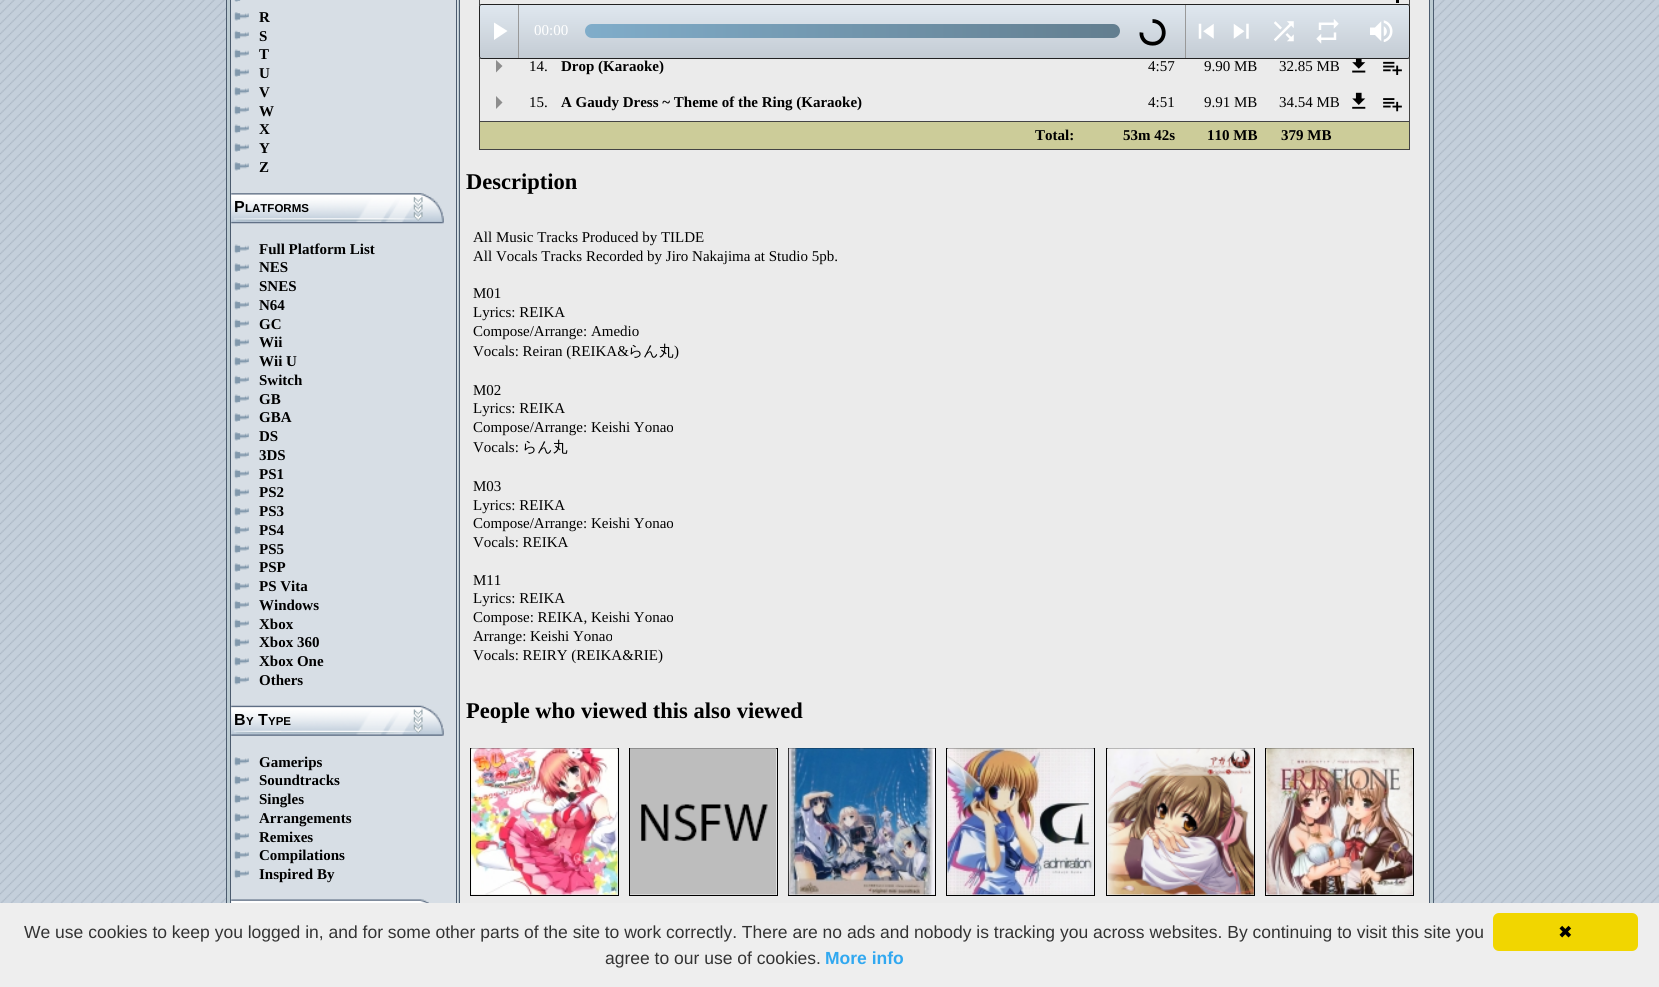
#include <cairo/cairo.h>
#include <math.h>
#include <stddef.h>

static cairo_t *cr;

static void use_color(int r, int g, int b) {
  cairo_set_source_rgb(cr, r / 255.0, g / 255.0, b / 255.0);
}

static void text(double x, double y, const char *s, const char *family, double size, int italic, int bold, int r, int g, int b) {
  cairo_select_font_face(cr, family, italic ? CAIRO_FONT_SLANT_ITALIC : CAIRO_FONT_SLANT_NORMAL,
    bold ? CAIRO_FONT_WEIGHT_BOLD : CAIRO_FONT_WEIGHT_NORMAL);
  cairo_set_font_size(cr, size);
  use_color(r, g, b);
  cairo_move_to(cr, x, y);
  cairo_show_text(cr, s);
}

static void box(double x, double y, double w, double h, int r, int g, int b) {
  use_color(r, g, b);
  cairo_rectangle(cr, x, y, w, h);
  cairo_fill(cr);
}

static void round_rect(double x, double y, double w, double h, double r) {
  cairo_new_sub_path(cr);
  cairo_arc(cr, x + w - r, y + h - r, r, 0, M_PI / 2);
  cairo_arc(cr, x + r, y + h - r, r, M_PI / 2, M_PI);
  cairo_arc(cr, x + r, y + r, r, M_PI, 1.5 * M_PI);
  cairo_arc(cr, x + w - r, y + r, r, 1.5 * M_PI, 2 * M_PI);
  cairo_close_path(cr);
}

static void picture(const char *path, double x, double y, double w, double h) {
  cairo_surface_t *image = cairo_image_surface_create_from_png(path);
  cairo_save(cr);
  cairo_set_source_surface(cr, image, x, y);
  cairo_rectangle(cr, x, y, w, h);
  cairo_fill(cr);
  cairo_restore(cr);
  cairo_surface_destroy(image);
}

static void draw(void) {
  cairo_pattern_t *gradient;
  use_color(255, 255, 255);
  cairo_paint(cr);
  picture("img_01.png", 0, 0, 1659, 903);
  box(227, 0, 1206, 903, 188, 203, 210);
  box(1433, 0, 1, 903, 75, 91, 110);
  box(226, 0, 1, 903, 75, 91, 110);
  box(231, 0, 227, 903, 215, 222, 229);
  box(456, 0, 1, 903, 75, 91, 110);
  box(230, 0, 1, 903, 75, 91, 110);
  picture("img_02.png", 234, 0, 7, 2);
  picture("img_03.png", 233, 12, 16, 9);
  picture("img_04.png", 233, 30, 16, 10);
  picture("img_05.png", 233, 49, 16, 10);
  picture("img_06.png", 233, 68, 16, 9);
  picture("img_03.png", 233, 87, 16, 9);
  picture("img_04.png", 233, 105, 16, 10);
  picture("img_05.png", 233, 124, 16, 10);
  picture("img_06.png", 233, 143, 16, 9);
  picture("img_03.png", 233, 162, 16, 9);
  picture("img_07.png", 231, 193, 213, 31);
  picture("img_05.png", 233, 244, 16, 10);
  picture("img_06.png", 233, 263, 16, 9);
  picture("img_03.png", 233, 282, 16, 9);
  picture("img_04.png", 233, 300, 16, 10);
  picture("img_05.png", 233, 319, 16, 10);
  picture("img_06.png", 233, 338, 16, 9);
  picture("img_03.png", 233, 357, 16, 9);
  picture("img_04.png", 233, 375, 16, 10);
  picture("img_05.png", 233, 394, 16, 10);
  picture("img_06.png", 233, 413, 16, 9);
  picture("img_03.png", 233, 432, 16, 9);
  picture("img_04.png", 233, 450, 16, 10);
  picture("img_05.png", 233, 469, 16, 10);
  picture("img_06.png", 233, 488, 16, 9);
  picture("img_03.png", 233, 507, 16, 9);
  picture("img_04.png", 233, 525, 16, 10);
  picture("img_05.png", 233, 544, 16, 10);
  picture("img_06.png", 233, 563, 16, 9);
  picture("img_03.png", 233, 582, 16, 9);
  picture("img_04.png", 233, 600, 16, 10);
  picture("img_05.png", 233, 619, 16, 10);
  picture("img_06.png", 233, 638, 16, 9);
  picture("img_03.png", 233, 657, 16, 9);
  picture("img_04.png", 233, 675, 16, 10);
  picture("img_08.png", 231, 705, 213, 31);
  picture("img_03.png", 233, 757, 16, 9);
  picture("img_04.png", 233, 775, 16, 10);
  picture("img_05.png", 233, 794, 16, 10);
  picture("img_06.png", 233, 813, 16, 9);
  picture("img_03.png", 233, 832, 16, 9);
  picture("img_04.png", 233, 850, 16, 10);
  picture("img_05.png", 233, 869, 16, 10);
  picture("img_09.png", 231, 899, 213, 4);
  box(1429, 0, 1, 903, 75, 91, 110);
  box(460, 0, 969, 903, 235, 235, 235);
  box(459, 0, 1, 903, 75, 91, 110);
  box(1409, 0, 1, 150, 68, 68, 68);
  box(479, 149, 931, 1, 68, 68, 68);
  box(479, 0, 1, 150, 68, 68, 68);
  cairo_save(cr);
  round_rect(479, 4, 931, 55, 2.5);
  cairo_clip(cr);
  gradient = cairo_pattern_create_linear(944, 5, 944, 58);
  cairo_pattern_add_color_stop_rgba(gradient, 0, 0.875, 0.906, 0.937, 1);
  cairo_pattern_add_color_stop_rgba(gradient, 1, 0.769, 0.8, 0.831, 1);
  cairo_set_source(cr, gradient);
  cairo_pattern_destroy(gradient);
  cairo_rectangle(cr, 479, 5, 931, 53);
  cairo_fill(cr);
  cairo_restore(cr);
  round_rect(479.5, 4.5, 930, 54, 2);
  use_color(34, 34, 34);
  cairo_set_line_width(cr, 1);
  cairo_stroke(cr);
  box(518, 5, 1, 53, 153, 153, 153);
  use_color(255, 255, 255);
  cairo_new_path(cr);
  cairo_move_to(cr, 494, 22.5);
  cairo_line_to(cr, 507.5, 31);
  cairo_line_to(cr, 494, 40);
  cairo_close_path(cr);
  cairo_fill(cr);
  gradient = cairo_pattern_create_linear(585, 31, 1120, 31);
  cairo_pattern_add_color_stop_rgba(gradient, 0, 0.502, 0.678, 0.792, 1);
  cairo_pattern_add_color_stop_rgba(gradient, 1, 0.388, 0.494, 0.561, 1);
  cairo_set_source(cr, gradient);
  cairo_pattern_destroy(gradient);
  round_rect(585, 24, 535, 14, 7);
  cairo_fill(cr);
  box(1185, 5, 1, 53, 153, 153, 153);
  cairo_new_path(cr);
  cairo_move_to(cr, 1152.5, 21);
  cairo_curve_to(cr, 1166, 21, 1168, 41, 1155, 43.5);
  cairo_curve_to(cr, 1152, 44, 1148.5, 43.5, 1146, 42);
  cairo_curve_to(cr, 1143, 40, 1141, 36, 1141.5, 32.5);
  use_color(0, 0, 0);
  cairo_set_line_width(cr, 3.8);
  cairo_stroke(cr);
  picture("img_10.png", 1198, 23, 16, 16);
  picture("img_11.png", 1233, 23, 16, 16);
  picture("img_12.png", 1274, 21, 20, 21);
  picture("img_13.png", 1316, 19, 23, 25);
  picture("img_14.png", 1370, 20, 23, 22);
  box(1396, 0, 3, 3, 0, 0, 0);
  use_color(141, 141, 141);
  cairo_new_path(cr);
  cairo_move_to(cr, 496, 72.5);
  cairo_line_to(cr, 496, 60);
  cairo_line_to(cr, 502.5, 66);
  cairo_close_path(cr);
  cairo_move_to(cr, 496, 109);
  cairo_line_to(cr, 496, 96);
  cairo_line_to(cr, 502.5, 102.5);
  cairo_close_path(cr);
  cairo_fill(cr);
  picture("img_15.png", 1352, 59, 14, 14);
  picture("img_16.png", 1383, 61, 19, 14);
  picture("img_17.png", 1352, 92, 14, 17);
  picture("img_18.png", 1383, 98, 19, 14);
  box(479, 121, 931, 1, 68, 68, 68);
  box(480, 122, 929, 27, 204, 204, 153);
  cairo_rectangle(cr, 470.5, 748.5, 148, 147);
  use_color(0, 0, 0);
  cairo_set_line_width(cr, 1);
  cairo_stroke(cr);
  picture("img_19.png", 471, 748, 147, 147);
  cairo_rectangle(cr, 629.5, 748.5, 148, 147);
  cairo_stroke(cr);
  picture("img_20.png", 630, 748, 147, 147);
  cairo_rectangle(cr, 788.5, 748.5, 147, 147);
  cairo_stroke(cr);
  picture("img_21.png", 788, 748, 147, 147);
  cairo_rectangle(cr, 946.5, 748.5, 148, 147);
  cairo_stroke(cr);
  picture("img_22.png", 947, 748, 147, 147);
  cairo_rectangle(cr, 1106.5, 748.5, 148, 147);
  cairo_stroke(cr);
  picture("img_23.png", 1107, 748, 147, 147);
  cairo_rectangle(cr, 1265.5, 748.5, 148, 147);
  cairo_stroke(cr);
  picture("img_24.png", 1266, 748, 147, 147);
  box(0, 903, 1659, 84, 238, 238, 238);
  use_color(241, 214, 0);
  round_rect(1493, 913, 145, 38, 6);
  cairo_fill(cr);
  text(259, 22, "R", "Liberation Serif", 15, 0, 1, 0, 0, 0);
  text(259, 41, "S", "Liberation Serif", 15, 0, 1, 0, 0, 0);
  text(259, 59, "T", "Liberation Serif", 15, 0, 1, 0, 0, 0);
  text(259, 78, "U", "Liberation Serif", 15, 0, 1, 0, 0, 0);
  text(259, 97, "V", "Liberation Serif", 15, 0, 1, 0, 0, 0);
  text(259, 116, "W", "Liberation Serif", 15, 0, 1, 0, 0, 0);
  text(259, 134, "X", "Liberation Serif", 15, 0, 1, 0, 0, 0);
  text(259, 153, "Y", "Liberation Serif", 15, 0, 1, 0, 0, 0);
  text(259, 172, "Z", "Liberation Serif", 15, 0, 1, 0, 0, 0);
  text(234, 212, "P", "Liberation Sans", 16, 0, 1, 0, 0, 0);
  text(245, 212, "LATFORMS", "Liberation Sans", 11.5, 0, 1, 0, 0, 0);
  text(259, 254, "Full Platform List", "Liberation Serif", 15, 0, 1, 0, 0, 0);
  text(259, 272, "NES", "Liberation Serif", 15, 0, 1, 0, 0, 0);
  text(259, 291, "SNES", "Liberation Serif", 15, 0, 1, 0, 0, 0);
  text(259, 310, "N64", "Liberation Serif", 15, 0, 1, 0, 0, 0);
  text(259, 329, "GC", "Liberation Serif", 15, 0, 1, 0, 0, 0);
  text(259, 347, "Wii", "Liberation Serif", 15, 0, 1, 0, 0, 0);
  text(259, 366, "Wii U", "Liberation Serif", 15, 0, 1, 0, 0, 0);
  text(259, 385, "Switch", "Liberation Serif", 15, 0, 1, 0, 0, 0);
  text(259, 404, "GB", "Liberation Serif", 15, 0, 1, 0, 0, 0);
  text(259, 422, "GBA", "Liberation Serif", 15, 0, 1, 0, 0, 0);
  text(259, 441, "DS", "Liberation Serif", 15, 0, 1, 0, 0, 0);
  text(259, 460, "3DS", "Liberation Serif", 15, 0, 1, 0, 0, 0);
  text(259, 479, "PS1", "Liberation Serif", 15, 0, 1, 0, 0, 0);
  text(259, 497, "PS2", "Liberation Serif", 15, 0, 1, 0, 0, 0);
  text(259, 516, "PS3", "Liberation Serif", 15, 0, 1, 0, 0, 0);
  text(259, 535, "PS4", "Liberation Serif", 15, 0, 1, 0, 0, 0);
  text(259, 554, "PS5", "Liberation Serif", 15, 0, 1, 0, 0, 0);
  text(259, 572, "PSP", "Liberation Serif", 15, 0, 1, 0, 0, 0);
  text(259, 591, "PS Vita", "Liberation Serif", 15, 0, 1, 0, 0, 0);
  text(259, 610, "Windows", "Liberation Serif", 15, 0, 1, 0, 0, 0);
  text(259, 629, "Xbox", "Liberation Serif", 15, 0, 1, 0, 0, 0);
  text(259, 647, "Xbox 360", "Liberation Serif", 15, 0, 1, 0, 0, 0);
  text(259, 666, "Xbox One", "Liberation Serif", 15, 0, 1, 0, 0, 0);
  text(259, 685, "Others", "Liberation Serif", 15, 0, 1, 0, 0, 0);
  text(234, 725, "B", "Liberation Sans", 16, 0, 1, 0, 0, 0);
  text(246, 725, "Y", "Liberation Sans", 11.5, 0, 1, 0, 0, 0);
  text(258, 725, "T", "Liberation Sans", 16, 0, 1, 0, 0, 0);
  text(268, 725, "YPE", "Liberation Sans", 11.5, 0, 1, 0, 0, 0);
  text(259, 767, "Gamerips", "Liberation Serif", 15, 0, 1, 0, 0, 0);
  text(259, 785, "Soundtracks", "Liberation Serif", 15, 0, 1, 0, 0, 0);
  text(259, 804, "Singles", "Liberation Serif", 15, 0, 1, 0, 0, 0);
  text(259, 823, "Arrangements", "Liberation Serif", 15, 0, 1, 0, 0, 0);
  text(259, 842, "Remixes", "Liberation Serif", 15, 0, 1, 0, 0, 0);
  text(259, 860, "Compilations", "Liberation Serif", 15, 0, 1, 0, 0, 0);
  text(259, 879, "Inspired By", "Liberation Serif", 15, 0, 1, 0, 0, 0);
  text(534, 35, "00:00", "Liberation Serif", 15, 0, 0, 255, 255, 255);
  text(529, 71, "14.", "Liberation Serif", 15, 0, 0, 0, 0, 0);
  text(561, 71, "Drop (Karaoke)", "Liberation Serif", 15, 0, 1, 0, 0, 0);
  text(1148, 71, "4:57", "Liberation Serif", 15, 0, 0, 0, 0, 0);
  text(1204, 71, "9.90 MB", "Liberation Serif", 15, 0, 0, 0, 0, 0);
  text(1279, 71, "32.85 MB", "Liberation Serif", 15, 0, 0, 0, 0, 0);
  text(529, 107, "15.", "Liberation Serif", 15, 0, 0, 0, 0, 0);
  text(561, 107, "A Gaudy Dress ~ Theme of the Ring (Karaoke)", "Liberation Serif", 15, 0, 1, 0, 0, 0);
  text(1148, 107, "4:51", "Liberation Serif", 15, 0, 0, 0, 0, 0);
  text(1204, 107, "9.91 MB", "Liberation Serif", 15, 0, 0, 0, 0, 0);
  text(1279, 107, "34.54 MB", "Liberation Serif", 15, 0, 0, 0, 0, 0);
  text(1035, 140, "Total:", "Liberation Serif", 15, 0, 1, 0, 0, 0);
  text(1123, 140, "53m 42s", "Liberation Serif", 15, 0, 1, 0, 0, 0);
  text(1207, 140, "110 MB", "Liberation Serif", 15, 0, 1, 0, 0, 0);
  text(1281, 140, "379 MB", "Liberation Serif", 15, 0, 1, 0, 0, 0);
  text(466, 189, "Description", "Liberation Serif", 22.5, 0, 1, 0, 0, 0);
  text(473, 242, "All Music Tracks Produced by TILDE", "Liberation Serif", 15, 0, 0, 0, 0, 0);
  text(473, 261, "All Vocals Tracks Recorded by Jiro Nakajima at Studio 5pb.", "Liberation Serif", 15, 0, 0, 0, 0, 0);
  text(473, 298, "M01", "Liberation Serif", 15, 0, 0, 0, 0, 0);
  text(473, 317, "Lyrics: REIKA", "Liberation Serif", 15, 0, 0, 0, 0, 0);
  text(473, 336, "Compose/Arrange: Amedio", "Liberation Serif", 15, 0, 0, 0, 0, 0);
  text(473, 356, "Vocals: Reiran (REIKA&", "Liberation Serif", 15, 0, 0, 0, 0, 0);
  text(628, 356, "らん丸", "WenQuanYi Zen Hei Medium", 15, 0, 0, 0, 0, 0);
  text(674, 356, ")", "Liberation Serif", 15, 0, 0, 0, 0, 0);
  text(473, 395, "M02", "Liberation Serif", 15, 0, 0, 0, 0, 0);
  text(473, 413, "Lyrics: REIKA", "Liberation Serif", 15, 0, 0, 0, 0, 0);
  text(473, 432, "Compose/Arrange: Keishi Yonao", "Liberation Serif", 15, 0, 0, 0, 0, 0);
  text(473, 452, "Vocals:", "Liberation Serif", 15, 0, 0, 0, 0, 0);
  text(522, 452, "らん丸", "WenQuanYi Zen Hei Medium", 15, 0, 0, 0, 0, 0);
  text(473, 491, "M03", "Liberation Serif", 15, 0, 0, 0, 0, 0);
  text(473, 510, "Lyrics: REIKA", "Liberation Serif", 15, 0, 0, 0, 0, 0);
  text(473, 528, "Compose/Arrange: Keishi Yonao", "Liberation Serif", 15, 0, 0, 0, 0, 0);
  text(473, 547, "Vocals: REIKA", "Liberation Serif", 15, 0, 0, 0, 0, 0);
  text(473, 585, "M11", "Liberation Serif", 15, 0, 0, 0, 0, 0);
  text(473, 603, "Lyrics: REIKA", "Liberation Serif", 15, 0, 0, 0, 0, 0);
  text(473, 622, "Compose: REIKA, Keishi Yonao", "Liberation Serif", 15, 0, 0, 0, 0, 0);
  text(473, 641, "Arrange: Keishi Yonao", "Liberation Serif", 15, 0, 0, 0, 0, 0);
  text(473, 660, "Vocals: REIRY (REIKA&RIE)", "Liberation Serif", 15, 0, 0, 0, 0, 0);
  text(466, 718, "People who viewed this also viewed", "Liberation Serif", 22.5, 0, 1, 0, 0, 0);
  text(24, 938, "We use cookies to keep you logged in, and for some other parts of the site to work correctly. There are no ads and nobody is tracking you across websites. By continuing to visit this site you", "Liberation Sans", 17.5, 0, 0, 51, 51, 51);
  text(605, 964, "agree to our use of cookies.", "Liberation Sans", 17.5, 0, 0, 51, 51, 51);
  text(825, 964, "More info", "Liberation Sans", 17.5, 0, 1, 49, 168, 240);
  text(1558, 938, "✖", "DejaVu Sans", 17.5, 0, 0, 0, 0, 0);
}

int main(void) {
  cairo_surface_t *surface = cairo_image_surface_create(CAIRO_FORMAT_RGB24, 1659, 987);
  cr = cairo_create(surface);
  cairo_font_options_t *options = cairo_font_options_create();
  cairo_font_options_set_hint_metrics(options, CAIRO_HINT_METRICS_OFF);
  cairo_font_options_set_hint_style(options, CAIRO_HINT_STYLE_NONE);
  cairo_set_font_options(cr, options);
  cairo_set_miter_limit(cr, 4);
  draw();
  cairo_surface_write_to_png(surface, "out.png");
  cairo_font_options_destroy(options);
  cairo_destroy(cr);
  cairo_surface_destroy(surface);
  return 0;
}
